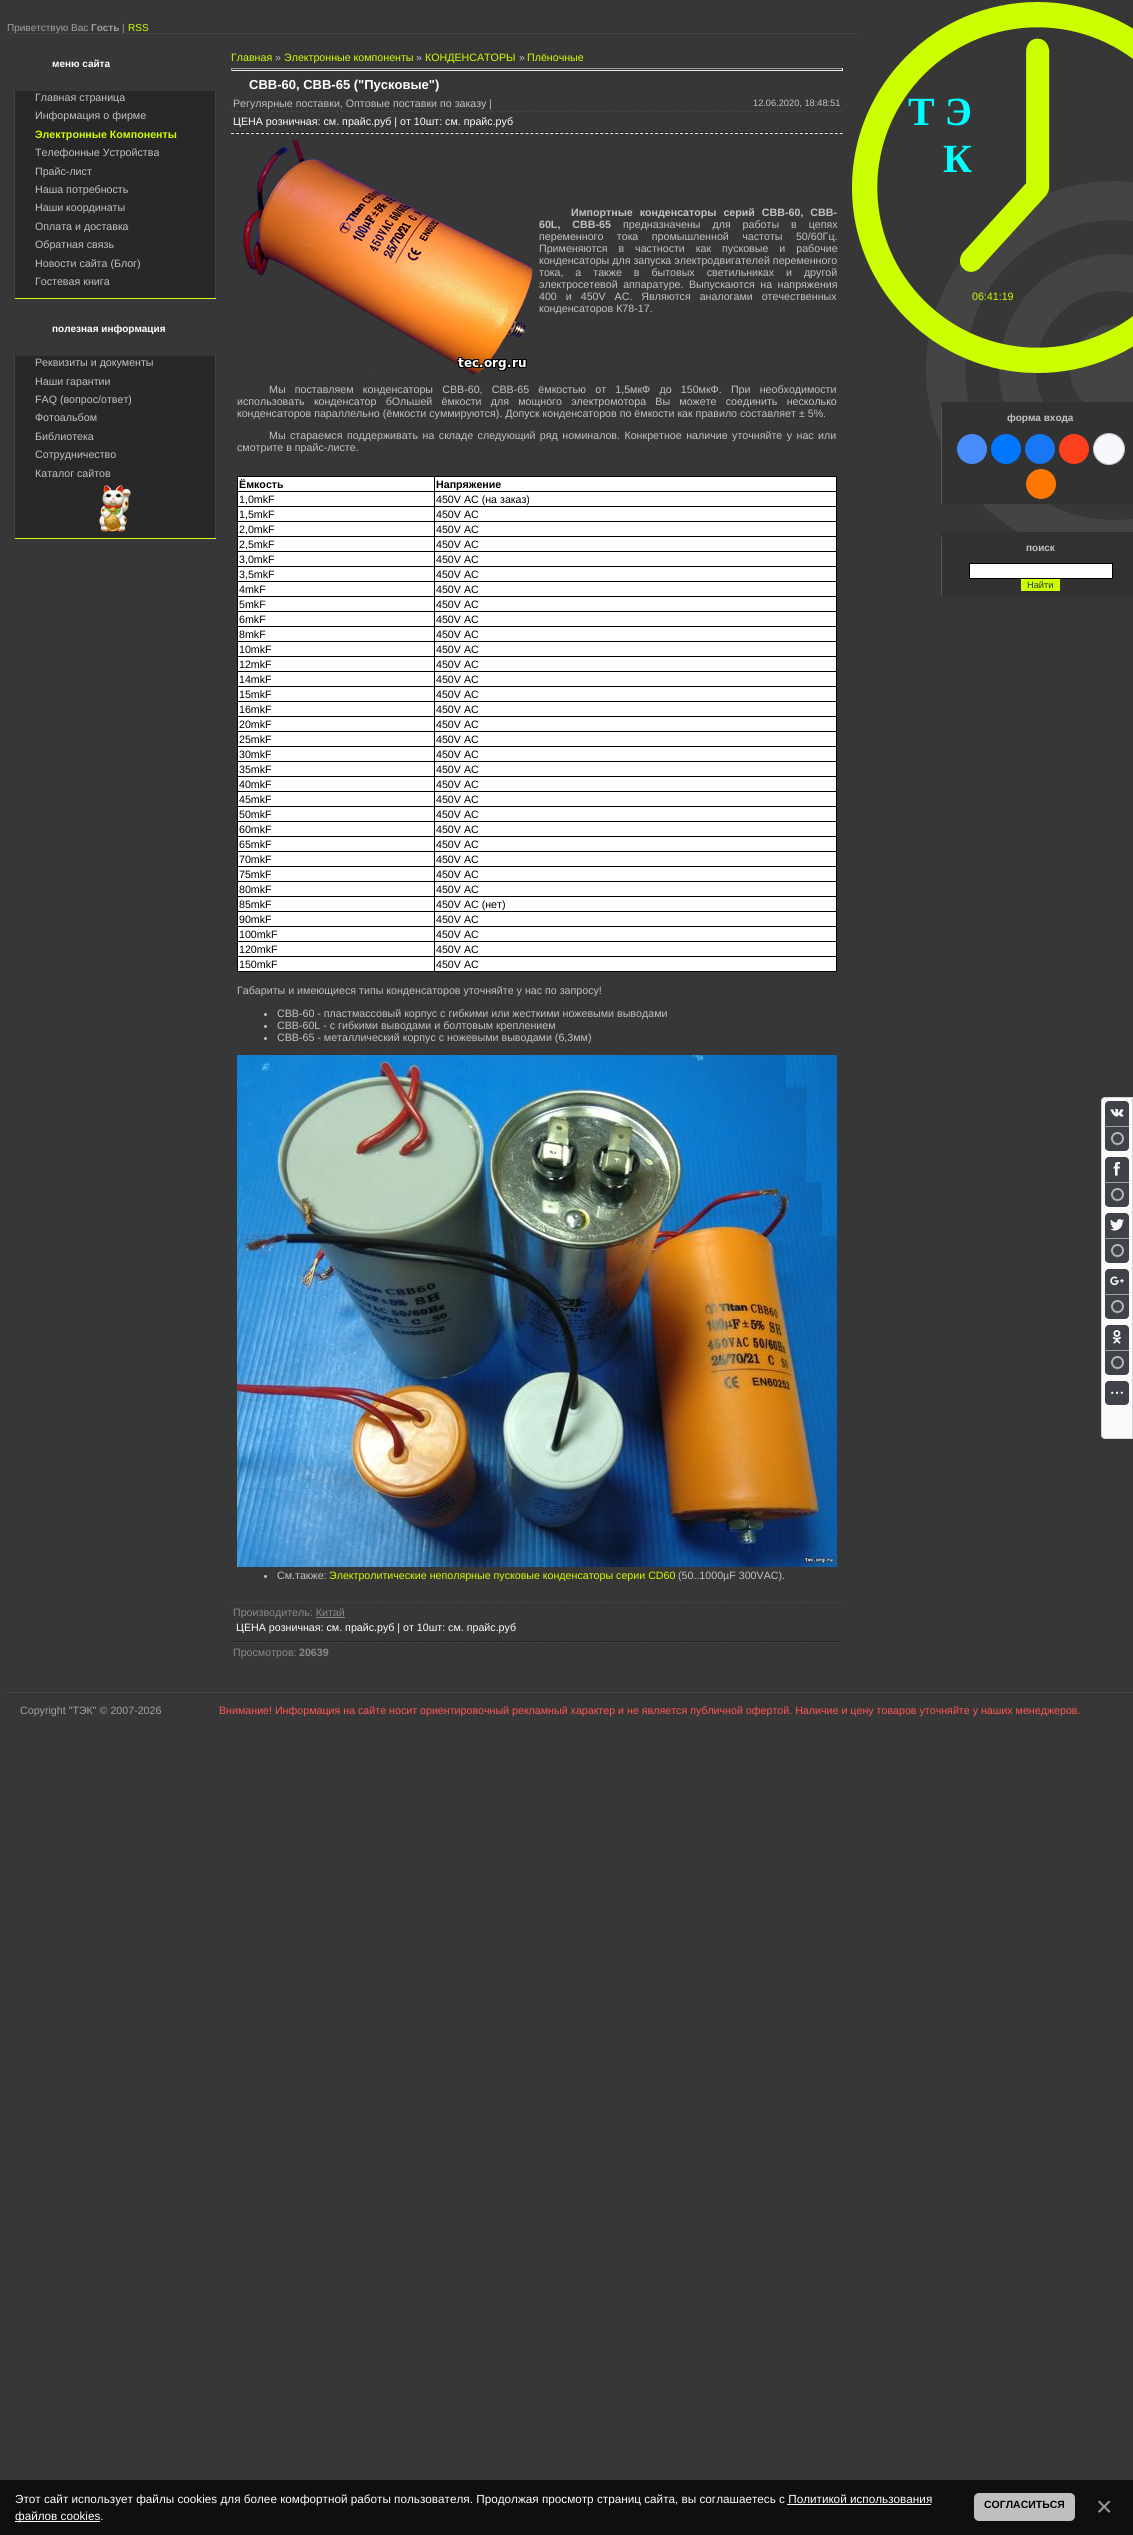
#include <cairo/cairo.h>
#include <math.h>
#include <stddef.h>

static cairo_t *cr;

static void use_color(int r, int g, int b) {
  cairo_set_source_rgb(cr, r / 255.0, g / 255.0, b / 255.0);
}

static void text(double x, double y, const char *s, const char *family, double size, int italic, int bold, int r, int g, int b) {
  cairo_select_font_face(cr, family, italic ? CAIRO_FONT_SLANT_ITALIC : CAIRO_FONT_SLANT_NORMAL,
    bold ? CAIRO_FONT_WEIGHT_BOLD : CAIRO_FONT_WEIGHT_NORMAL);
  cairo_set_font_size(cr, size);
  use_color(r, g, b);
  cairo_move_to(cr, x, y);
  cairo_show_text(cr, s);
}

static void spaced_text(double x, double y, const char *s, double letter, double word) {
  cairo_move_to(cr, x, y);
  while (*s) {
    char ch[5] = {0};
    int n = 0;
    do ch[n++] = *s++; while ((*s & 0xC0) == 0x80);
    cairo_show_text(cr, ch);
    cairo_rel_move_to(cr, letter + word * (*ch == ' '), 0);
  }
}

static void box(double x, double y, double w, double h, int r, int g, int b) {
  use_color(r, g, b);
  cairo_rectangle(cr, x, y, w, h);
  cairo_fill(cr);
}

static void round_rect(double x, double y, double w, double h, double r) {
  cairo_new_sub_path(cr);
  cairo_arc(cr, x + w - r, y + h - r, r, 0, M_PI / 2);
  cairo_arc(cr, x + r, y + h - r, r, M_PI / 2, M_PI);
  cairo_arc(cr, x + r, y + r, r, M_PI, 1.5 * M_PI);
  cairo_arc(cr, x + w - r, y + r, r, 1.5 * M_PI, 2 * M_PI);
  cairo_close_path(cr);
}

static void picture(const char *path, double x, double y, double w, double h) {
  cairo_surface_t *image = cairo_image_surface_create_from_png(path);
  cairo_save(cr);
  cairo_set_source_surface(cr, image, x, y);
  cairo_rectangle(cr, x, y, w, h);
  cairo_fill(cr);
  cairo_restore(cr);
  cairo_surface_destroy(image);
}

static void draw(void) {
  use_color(55, 55, 55);
  cairo_paint(cr);
  picture("img_01.png", 852, 2, 281, 557);
  box(7, 33, 851, 1, 68, 68, 68);
  box(15, 91, 200, 207, 40, 40, 40);
  box(215, 91, 1, 208, 68, 68, 68);
  box(14, 298, 202, 1, 204, 255, 0);
  box(14, 91, 1, 208, 68, 68, 68);
  box(15, 356, 200, 182, 40, 40, 40);
  box(215, 356, 1, 183, 68, 68, 68);
  box(14, 538, 202, 1, 204, 255, 0);
  box(14, 356, 1, 183, 68, 68, 68);
  picture("img_02.png", 99, 485, 32, 47);
  box(231, 68, 612, 1, 159, 159, 159);
  box(842, 68, 1, 3, 238, 238, 238);
  box(231, 70, 612, 1, 238, 238, 238);
  box(231, 68, 1, 3, 159, 159, 159);
  cairo_new_path(cr);
  cairo_move_to(cr, 231, 111.5);
  cairo_line_to(cr, 843, 111.5);
  use_color(68, 68, 68);
  cairo_set_line_width(cr, 1);
  cairo_set_dash(cr, (double[]){3, 1.99}, 2, 0);
  cairo_stroke(cr);
  box(231, 132, 612, 1, 40, 40, 40);
  cairo_new_path(cr);
  cairo_move_to(cr, 231, 133.5);
  cairo_line_to(cr, 843, 133.5);
  use_color(239, 239, 239);
  cairo_stroke(cr);
  picture("img_03.png", 237, 140, 296, 235);
  box(238, 477, 196, 14, 255, 255, 255);
  box(434, 476, 403, 1, 0, 0, 0);
  box(434, 491, 403, 1, 0, 0, 0);
  box(434, 506, 403, 1, 0, 0, 0);
  box(434, 521, 403, 1, 0, 0, 0);
  box(434, 536, 403, 1, 0, 0, 0);
  box(434, 551, 403, 1, 0, 0, 0);
  box(434, 566, 403, 1, 0, 0, 0);
  box(434, 581, 403, 1, 0, 0, 0);
  box(434, 596, 403, 1, 0, 0, 0);
  box(434, 611, 403, 1, 0, 0, 0);
  box(434, 626, 403, 1, 0, 0, 0);
  box(434, 641, 403, 1, 0, 0, 0);
  box(434, 656, 403, 1, 0, 0, 0);
  box(434, 671, 403, 1, 0, 0, 0);
  box(434, 686, 403, 1, 0, 0, 0);
  box(434, 701, 403, 1, 0, 0, 0);
  box(434, 716, 403, 1, 0, 0, 0);
  box(434, 731, 403, 1, 0, 0, 0);
  box(434, 746, 403, 1, 0, 0, 0);
  box(434, 761, 403, 1, 0, 0, 0);
  box(434, 776, 403, 1, 0, 0, 0);
  box(434, 791, 403, 1, 0, 0, 0);
  box(434, 806, 403, 1, 0, 0, 0);
  box(434, 821, 403, 1, 0, 0, 0);
  box(434, 836, 403, 1, 0, 0, 0);
  box(434, 851, 403, 1, 0, 0, 0);
  box(434, 866, 403, 1, 0, 0, 0);
  box(434, 881, 403, 1, 0, 0, 0);
  box(434, 896, 403, 1, 0, 0, 0);
  box(434, 911, 403, 1, 0, 0, 0);
  box(434, 926, 403, 1, 0, 0, 0);
  box(434, 941, 403, 1, 0, 0, 0);
  box(434, 956, 403, 1, 0, 0, 0);
  box(836, 956, 1, 16, 0, 0, 0);
  box(434, 971, 403, 1, 0, 0, 0);
  box(434, 956, 1, 16, 0, 0, 0);
  box(237, 956, 198, 1, 0, 0, 0);
  box(434, 941, 1, 16, 0, 0, 0);
  box(237, 941, 198, 1, 0, 0, 0);
  box(434, 926, 1, 16, 0, 0, 0);
  box(237, 926, 198, 1, 0, 0, 0);
  box(434, 911, 1, 16, 0, 0, 0);
  box(237, 911, 198, 1, 0, 0, 0);
  box(434, 896, 1, 16, 0, 0, 0);
  box(237, 896, 198, 1, 0, 0, 0);
  box(434, 881, 1, 16, 0, 0, 0);
  box(237, 881, 198, 1, 0, 0, 0);
  box(434, 866, 1, 16, 0, 0, 0);
  box(237, 866, 198, 1, 0, 0, 0);
  box(434, 851, 1, 16, 0, 0, 0);
  box(237, 851, 198, 1, 0, 0, 0);
  box(434, 836, 1, 16, 0, 0, 0);
  box(237, 836, 198, 1, 0, 0, 0);
  box(434, 821, 1, 16, 0, 0, 0);
  box(237, 821, 198, 1, 0, 0, 0);
  box(434, 806, 1, 16, 0, 0, 0);
  box(237, 806, 198, 1, 0, 0, 0);
  box(434, 791, 1, 16, 0, 0, 0);
  box(237, 791, 198, 1, 0, 0, 0);
  box(434, 776, 1, 16, 0, 0, 0);
  box(237, 776, 198, 1, 0, 0, 0);
  box(434, 761, 1, 16, 0, 0, 0);
  box(237, 761, 198, 1, 0, 0, 0);
  box(434, 746, 1, 16, 0, 0, 0);
  box(237, 746, 198, 1, 0, 0, 0);
  box(434, 731, 1, 16, 0, 0, 0);
  box(237, 731, 198, 1, 0, 0, 0);
  box(434, 716, 1, 16, 0, 0, 0);
  box(237, 716, 198, 1, 0, 0, 0);
  box(434, 701, 1, 16, 0, 0, 0);
  box(237, 701, 198, 1, 0, 0, 0);
  box(434, 686, 1, 16, 0, 0, 0);
  box(237, 686, 198, 1, 0, 0, 0);
  box(434, 671, 1, 16, 0, 0, 0);
  box(237, 671, 198, 1, 0, 0, 0);
  box(434, 656, 1, 16, 0, 0, 0);
  box(237, 656, 198, 1, 0, 0, 0);
  box(434, 641, 1, 16, 0, 0, 0);
  box(237, 641, 198, 1, 0, 0, 0);
  box(434, 626, 1, 16, 0, 0, 0);
  box(237, 626, 198, 1, 0, 0, 0);
  box(434, 611, 1, 16, 0, 0, 0);
  box(237, 611, 198, 1, 0, 0, 0);
  box(434, 596, 1, 16, 0, 0, 0);
  box(237, 596, 198, 1, 0, 0, 0);
  box(434, 581, 1, 16, 0, 0, 0);
  box(237, 581, 198, 1, 0, 0, 0);
  box(434, 566, 1, 16, 0, 0, 0);
  box(237, 566, 198, 1, 0, 0, 0);
  box(434, 551, 1, 16, 0, 0, 0);
  box(237, 551, 198, 1, 0, 0, 0);
  box(434, 536, 1, 16, 0, 0, 0);
  box(237, 536, 198, 1, 0, 0, 0);
  box(434, 521, 1, 16, 0, 0, 0);
  box(237, 521, 198, 1, 0, 0, 0);
  box(434, 506, 1, 16, 0, 0, 0);
  box(237, 506, 198, 1, 0, 0, 0);
  box(434, 491, 1, 16, 0, 0, 0);
  box(237, 491, 198, 1, 0, 0, 0);
  box(434, 476, 1, 16, 0, 0, 0);
  box(237, 476, 198, 1, 0, 0, 0);
  box(237, 971, 198, 1, 0, 0, 0);
  box(237, 956, 1, 16, 0, 0, 0);
  box(237, 941, 1, 16, 0, 0, 0);
  box(237, 926, 1, 16, 0, 0, 0);
  box(237, 911, 1, 16, 0, 0, 0);
  box(237, 896, 1, 16, 0, 0, 0);
  box(237, 881, 1, 16, 0, 0, 0);
  box(237, 866, 1, 16, 0, 0, 0);
  box(237, 851, 1, 16, 0, 0, 0);
  box(237, 836, 1, 16, 0, 0, 0);
  box(237, 821, 1, 16, 0, 0, 0);
  box(237, 806, 1, 16, 0, 0, 0);
  box(237, 791, 1, 16, 0, 0, 0);
  box(237, 776, 1, 16, 0, 0, 0);
  box(237, 761, 1, 16, 0, 0, 0);
  box(237, 746, 1, 16, 0, 0, 0);
  box(237, 731, 1, 16, 0, 0, 0);
  box(237, 716, 1, 16, 0, 0, 0);
  box(237, 701, 1, 16, 0, 0, 0);
  box(237, 686, 1, 16, 0, 0, 0);
  box(237, 671, 1, 16, 0, 0, 0);
  box(237, 656, 1, 16, 0, 0, 0);
  box(237, 641, 1, 16, 0, 0, 0);
  box(237, 626, 1, 16, 0, 0, 0);
  box(237, 611, 1, 16, 0, 0, 0);
  box(237, 596, 1, 16, 0, 0, 0);
  box(237, 581, 1, 16, 0, 0, 0);
  box(237, 566, 1, 16, 0, 0, 0);
  box(237, 551, 1, 16, 0, 0, 0);
  box(237, 536, 1, 16, 0, 0, 0);
  box(237, 521, 1, 16, 0, 0, 0);
  box(237, 506, 1, 16, 0, 0, 0);
  box(237, 491, 1, 16, 0, 0, 0);
  box(237, 476, 1, 16, 0, 0, 0);
  box(435, 477, 401, 14, 255, 255, 255);
  box(836, 941, 1, 16, 0, 0, 0);
  box(836, 926, 1, 16, 0, 0, 0);
  box(836, 911, 1, 16, 0, 0, 0);
  box(836, 896, 1, 16, 0, 0, 0);
  box(836, 881, 1, 16, 0, 0, 0);
  box(836, 866, 1, 16, 0, 0, 0);
  box(836, 851, 1, 16, 0, 0, 0);
  box(836, 836, 1, 16, 0, 0, 0);
  box(836, 821, 1, 16, 0, 0, 0);
  box(836, 806, 1, 16, 0, 0, 0);
  box(836, 791, 1, 16, 0, 0, 0);
  box(836, 776, 1, 16, 0, 0, 0);
  box(836, 761, 1, 16, 0, 0, 0);
  box(836, 746, 1, 16, 0, 0, 0);
  box(836, 731, 1, 16, 0, 0, 0);
  box(836, 716, 1, 16, 0, 0, 0);
  box(836, 701, 1, 16, 0, 0, 0);
  box(836, 686, 1, 16, 0, 0, 0);
  box(836, 671, 1, 16, 0, 0, 0);
  box(836, 656, 1, 16, 0, 0, 0);
  box(836, 641, 1, 16, 0, 0, 0);
  box(836, 626, 1, 16, 0, 0, 0);
  box(836, 611, 1, 16, 0, 0, 0);
  box(836, 596, 1, 16, 0, 0, 0);
  box(836, 581, 1, 16, 0, 0, 0);
  box(836, 566, 1, 16, 0, 0, 0);
  box(836, 551, 1, 16, 0, 0, 0);
  box(836, 536, 1, 16, 0, 0, 0);
  box(836, 521, 1, 16, 0, 0, 0);
  box(836, 506, 1, 16, 0, 0, 0);
  box(836, 491, 1, 16, 0, 0, 0);
  box(836, 476, 1, 16, 0, 0, 0);
  box(238, 492, 196, 14, 255, 255, 255);
  box(435, 492, 401, 14, 255, 255, 255);
  box(238, 507, 196, 14, 255, 255, 255);
  box(435, 507, 401, 14, 255, 255, 255);
  box(238, 522, 196, 14, 255, 255, 255);
  box(435, 522, 401, 14, 255, 255, 255);
  box(238, 537, 196, 14, 255, 255, 255);
  box(435, 537, 401, 14, 255, 255, 255);
  box(238, 552, 196, 14, 255, 255, 255);
  box(435, 552, 401, 14, 255, 255, 255);
  box(238, 567, 196, 14, 255, 255, 255);
  box(435, 567, 401, 14, 255, 255, 255);
  box(238, 582, 196, 14, 255, 255, 255);
  box(435, 582, 401, 14, 255, 255, 255);
  box(238, 597, 196, 14, 255, 255, 255);
  box(435, 597, 401, 14, 255, 255, 255);
  box(238, 612, 196, 14, 255, 255, 255);
  box(435, 612, 401, 14, 255, 255, 255);
  box(238, 627, 196, 14, 255, 255, 255);
  box(435, 627, 401, 14, 255, 255, 255);
  box(238, 642, 196, 14, 255, 255, 255);
  box(435, 642, 401, 14, 255, 255, 255);
  box(238, 657, 196, 14, 255, 255, 255);
  box(435, 657, 401, 14, 255, 255, 255);
  box(238, 672, 196, 14, 255, 255, 255);
  box(435, 672, 401, 14, 255, 255, 255);
  box(238, 687, 196, 14, 255, 255, 255);
  box(435, 687, 401, 14, 255, 255, 255);
  box(238, 702, 196, 14, 255, 255, 255);
  box(435, 702, 401, 14, 255, 255, 255);
  box(238, 717, 196, 14, 255, 255, 255);
  box(435, 717, 401, 14, 255, 255, 255);
  box(238, 732, 196, 14, 255, 255, 255);
  box(435, 732, 401, 14, 255, 255, 255);
  box(238, 747, 196, 14, 255, 255, 255);
  box(435, 747, 401, 14, 255, 255, 255);
  box(238, 762, 196, 14, 255, 255, 255);
  box(435, 762, 401, 14, 255, 255, 255);
  box(238, 777, 196, 14, 255, 255, 255);
  box(435, 777, 401, 14, 255, 255, 255);
  box(238, 792, 196, 14, 255, 255, 255);
  box(435, 792, 401, 14, 255, 255, 255);
  box(238, 807, 196, 14, 255, 255, 255);
  box(435, 807, 401, 14, 255, 255, 255);
  box(238, 822, 196, 14, 255, 255, 255);
  box(435, 822, 401, 14, 255, 255, 255);
  box(238, 837, 196, 14, 255, 255, 255);
  box(435, 837, 401, 14, 255, 255, 255);
  box(238, 852, 196, 14, 255, 255, 255);
  box(435, 852, 401, 14, 255, 255, 255);
  box(238, 867, 196, 14, 255, 255, 255);
  box(435, 867, 401, 14, 255, 255, 255);
  box(238, 882, 196, 14, 255, 255, 255);
  box(435, 882, 401, 14, 255, 255, 255);
  box(238, 897, 196, 14, 255, 255, 255);
  box(435, 897, 401, 14, 255, 255, 255);
  box(238, 912, 196, 14, 255, 255, 255);
  box(435, 912, 401, 14, 255, 255, 255);
  box(238, 927, 196, 14, 255, 255, 255);
  box(435, 927, 401, 14, 255, 255, 255);
  box(238, 942, 196, 14, 255, 255, 255);
  box(435, 942, 401, 14, 255, 255, 255);
  box(238, 957, 196, 14, 255, 255, 255);
  box(435, 957, 401, 14, 255, 255, 255);
  use_color(194, 194, 194);
  cairo_arc(cr, 265.5, 1014.5, 1.5, 0, 2 * M_PI);
  cairo_fill(cr);
  cairo_arc(cr, 265.5, 1026.5, 1.5, 0, 2 * M_PI);
  cairo_fill(cr);
  cairo_arc(cr, 265.5, 1038.5, 1.5, 0, 2 * M_PI);
  cairo_fill(cr);
  picture("img_04.png", 237, 1055, 600, 512);
  cairo_arc(cr, 265.5, 1576.5, 1.5, 0, 2 * M_PI);
  cairo_fill(cr);
  cairo_new_path(cr);
  cairo_move_to(cr, 231, 1602.5);
  cairo_line_to(cr, 843, 1602.5);
  use_color(68, 68, 68);
  cairo_stroke(cr);
  box(231, 1641, 612, 1, 40, 40, 40);
  box(316, 1617, 29, 1, 137, 137, 137);
  cairo_new_path(cr);
  cairo_move_to(cr, 231, 1642.5);
  cairo_line_to(cr, 843, 1642.5);
  use_color(68, 68, 68);
  cairo_stroke(cr);
  box(941, 402, 192, 5, 50, 50, 50);
  box(942, 407, 191, 97, 50, 50, 50);
  box(941, 407, 1, 97, 85, 85, 85);
  use_color(73, 139, 250);
  cairo_arc(cr, 972, 449, 15, 0, 2 * M_PI);
  cairo_fill(cr);
  use_color(0, 119, 255);
  cairo_arc(cr, 1006, 449, 15, 0, 2 * M_PI);
  cairo_fill(cr);
  use_color(24, 119, 242);
  cairo_arc(cr, 1040, 449, 15, 0, 2 * M_PI);
  cairo_fill(cr);
  use_color(252, 63, 29);
  cairo_arc(cr, 1074, 449, 15, 0, 2 * M_PI);
  cairo_fill(cr);
  use_color(248, 248, 252);
  cairo_arc(cr, 1109, 449, 15.5, 0, 2 * M_PI);
  cairo_fill_preserve(cr);
  use_color(196, 196, 196);
  cairo_set_dash(cr, NULL, 0, 0);
  cairo_stroke(cr);
  use_color(255, 119, 0);
  cairo_arc(cr, 1041, 484, 15, 0, 2 * M_PI);
  cairo_fill(cr);
  box(941, 532, 192, 5, 50, 50, 50);
  box(942, 537, 191, 59, 50, 50, 50);
  box(941, 537, 1, 59, 85, 85, 85);
  use_color(255, 255, 255);
  cairo_rectangle(cr, 969.5, 563.5, 143, 15);
  cairo_fill_preserve(cr);
  use_color(0, 0, 0);
  cairo_stroke(cr);
  box(1021, 579, 39, 12, 204, 255, 0);
  box(7, 1692, 1126, 1, 68, 68, 68);
  use_color(250, 250, 250);
  cairo_new_path(cr);
  cairo_move_to(cr, 1105, 1097.5);
  cairo_line_to(cr, 1132.5, 1097.5);
  cairo_line_to(cr, 1132.5, 1438.5);
  cairo_line_to(cr, 1105, 1438.5);
  cairo_curve_to(cr, 1103, 1438.5, 1101.5, 1437, 1101.5, 1435);
  cairo_line_to(cr, 1101.5, 1101);
  cairo_curve_to(cr, 1101.5, 1099, 1103, 1097.5, 1105, 1097.5);
  cairo_close_path(cr);
  cairo_fill_preserve(cr);
  use_color(212, 212, 212);
  cairo_stroke(cr);
  use_color(63, 66, 72);
  round_rect(1105, 1101, 24, 50, 4);
  cairo_fill(cr);
  picture("img_05.png", 1110, 1109, 14, 8);
  box(1105, 1126, 24, 1, 159, 161, 164);
  cairo_arc(cr, 1117.5, 1138.5, 5.5, 0, 2 * M_PI);
  use_color(178, 179, 182);
  cairo_set_line_width(cr, 2);
  cairo_stroke(cr);
  use_color(63, 66, 72);
  round_rect(1105, 1157, 24, 50, 4);
  cairo_fill(cr);
  picture("img_06.png", 1113, 1162, 8, 14);
  box(1105, 1182, 24, 1, 159, 161, 164);
  cairo_arc(cr, 1117.5, 1194.5, 5.5, 0, 2 * M_PI);
  use_color(178, 179, 182);
  cairo_stroke(cr);
  use_color(63, 66, 72);
  round_rect(1105, 1213, 24, 50, 4);
  cairo_fill(cr);
  picture("img_07.png", 1110, 1219, 14, 12);
  box(1105, 1238, 24, 1, 159, 161, 164);
  cairo_arc(cr, 1117.5, 1250.5, 5.5, 0, 2 * M_PI);
  use_color(178, 179, 182);
  cairo_stroke(cr);
  use_color(63, 66, 72);
  round_rect(1105, 1269, 24, 50, 4);
  cairo_fill(cr);
  picture("img_08.png", 1110, 1276, 14, 10);
  box(1105, 1294, 24, 1, 159, 161, 164);
  cairo_arc(cr, 1117.5, 1306.5, 5.5, 0, 2 * M_PI);
  use_color(178, 179, 182);
  cairo_stroke(cr);
  use_color(63, 66, 72);
  round_rect(1105, 1325, 24, 50, 4);
  cairo_fill(cr);
  picture("img_09.png", 1112, 1330, 9, 14);
  box(1105, 1350, 24, 1, 159, 161, 164);
  cairo_arc(cr, 1117.5, 1362.5, 5.5, 0, 2 * M_PI);
  use_color(178, 179, 182);
  cairo_stroke(cr);
  use_color(63, 66, 72);
  round_rect(1105, 1381, 24, 24, 4);
  cairo_fill(cr);
  picture("img_10.png", 1111, 1391, 12, 3);
  box(0, 2480, 1133, 55, 15, 15, 15);
  box(787, 2504, 144, 1, 255, 255, 255);
  box(15, 2521, 85, 1, 255, 255, 255);
  use_color(191, 191, 191);
  round_rect(974, 2493, 101, 28, 5);
  cairo_fill(cr);
  text(7, 31, "Приветствую Вас", "Liberation Sans", 10, 0, 0, 161, 161, 161);
  text(91, 31, "Гость", "Liberation Sans", 10, 0, 1, 161, 161, 161);
  text(122, 31, "|", "Liberation Sans", 10, 0, 0, 161, 161, 161);
  text(128, 31, "RSS", "Liberation Sans", 10, 0, 0, 204, 255, 0);
  text(52, 67, "меню сайта", "Liberation Sans", 10, 0, 1, 255, 255, 255);
  text(35, 101, "Главная страница", "Liberation Sans", 10.67, 0, 0, 194, 194, 194);
  text(35, 119, "Информация о фирме", "Liberation Sans", 10.67, 0, 0, 194, 194, 194);
  text(35, 138, "Электронные Компоненты", "Liberation Sans", 10.67, 0, 1, 204, 255, 0);
  text(35, 156, "Телефонные Устройства", "Liberation Sans", 10.67, 0, 0, 194, 194, 194);
  text(35, 175, "Прайс-лист", "Liberation Sans", 10.67, 0, 0, 194, 194, 194);
  text(35, 193, "Наша потребность", "Liberation Sans", 10.67, 0, 0, 194, 194, 194);
  text(35, 211, "Наши координаты", "Liberation Sans", 10.67, 0, 0, 194, 194, 194);
  text(35, 230, "Оплата и доставка", "Liberation Sans", 10.67, 0, 0, 194, 194, 194);
  text(35, 248, "Обратная связь", "Liberation Sans", 10.67, 0, 0, 194, 194, 194);
  text(35, 267, "Новости сайта (Блог)", "Liberation Sans", 10.67, 0, 0, 194, 194, 194);
  text(35, 285, "Гостевая книга", "Liberation Sans", 10.67, 0, 0, 194, 194, 194);
  text(52, 332, "полезная информация", "Liberation Sans", 10, 0, 1, 255, 255, 255);
  text(35, 366, "Реквизиты и документы", "Liberation Sans", 10.67, 0, 0, 194, 194, 194);
  text(35, 385, "Наши гарантии", "Liberation Sans", 10.67, 0, 0, 194, 194, 194);
  text(35, 403, "FAQ (вопрос/ответ)", "Liberation Sans", 10.67, 0, 0, 194, 194, 194);
  text(35, 421, "Фотоальбом", "Liberation Sans", 10.67, 0, 0, 194, 194, 194);
  text(35, 440, "Библиотека", "Liberation Sans", 10.67, 0, 0, 194, 194, 194);
  text(35, 458, "Сотрудничество", "Liberation Sans", 10.67, 0, 0, 194, 194, 194);
  text(35, 477, "Каталог сайтов", "Liberation Sans", 10.67, 0, 0, 194, 194, 194);
  text(231, 61, "Главная", "Liberation Sans", 10.67, 0, 0, 204, 255, 0);
  text(275, 61, "»", "Liberation Sans", 10.67, 0, 0, 194, 194, 194);
  text(284, 61, "Электронные компоненты", "Liberation Sans", 10.67, 0, 0, 204, 255, 0);
  text(416, 61, "»", "Liberation Sans", 10.67, 0, 0, 194, 194, 194);
  text(425, 61, "КОНДЕНСАТОРЫ", "Liberation Sans", 10.67, 0, 0, 204, 255, 0);
  text(519, 61, "»", "Liberation Sans", 10.67, 0, 0, 194, 194, 194);
  text(527, 61, "Плёночные", "Liberation Sans", 10.67, 0, 0, 204, 255, 0);
  text(249, 89, "CBB-60, CBB-65 (\"Пусковые\")", "Liberation Sans", 13, 0, 1, 255, 255, 255);
  text(233, 107, "Регулярные поставки, Оптовые поставки по заказу |", "Liberation Sans", 10.67, 0, 0, 194, 194, 194);
  text(753, 106, "12.06.2020, 18:48:51", "Liberation Sans", 9.25, 0, 0, 194, 194, 194);
  text(233, 125, "ЦЕНА розничная: см. прайс.руб | от 10шт: см. прайс.руб", "Liberation Sans", 10.67, 0, 0, 255, 255, 255);
  cairo_select_font_face(cr, "Liberation Sans", CAIRO_FONT_SLANT_NORMAL, CAIRO_FONT_WEIGHT_BOLD);
  use_color(194, 194, 194);
  spaced_text(571, 216, "Импортные конденсаторы серий CBB-60, CBB-", 0, 4);
  spaced_text(539, 228, "60L, CBB-65", 0, 9);
  cairo_select_font_face(cr, "Liberation Sans", CAIRO_FONT_SLANT_NORMAL, CAIRO_FONT_WEIGHT_NORMAL);
  spaced_text(623, 228, "предназначены для работы в цепях", 0, 9);
  spaced_text(539, 240, "переменного тока промышленной частоты 50/60Гц.", 0, 10.5);
  spaced_text(539, 252, "Применяются в частности как пусковые и рабочие", 0, 8);
  text(539, 264, "конденсаторы для запуска электродвигателей переменного", "Liberation Sans", 10.67, 0, 0, 194, 194, 194);
  spaced_text(539, 276, "тока, а также в бытовых светильниках и другой", 0, 9);
  spaced_text(539, 288, "электросетевой аппаратуре. Выпускаются на напряжения", 0, 2.5);
  spaced_text(539, 300, "400 и 450V AC. Являются аналогами отечественных", 0, 6);
  text(539, 312, "конденсаторов К78-17.", "Liberation Sans", 10.67, 0, 0, 194, 194, 194);
  spaced_text(269, 393, "Мы поставляем конденсаторы CBB-60, CBB-65 ёмкостью от 1,5мкФ до 150мкФ. При необходимости", 0, 6.25);
  spaced_text(237, 405, "использовать конденсатор бОльшей ёмкости для мощного электромотора Вы можете соединить несколько", 0, 6.25);
  text(237, 417, "конденсаторов параллельно (ёмкости суммируются). Допуск конденсаторов по ёмкости как правило составляет ± 5%.", "Liberation Sans", 10.67, 0, 0, 194, 194, 194);
  spaced_text(269, 439, "Мы стараемся поддерживать на складе следующий ряд номиналов. Конкретное наличие уточняйте у нас или", 0, 1.5);
  text(237, 451, "смотрите в прайс-листе.", "Liberation Sans", 10.67, 0, 0, 194, 194, 194);
  text(239, 488, "Ёмкость", "Liberation Sans", 10.67, 0, 1, 0, 0, 0);
  text(436, 488, "Напряжение", "Liberation Sans", 10.67, 0, 1, 0, 0, 0);
  text(239, 503, "1,0mkF", "Liberation Sans", 10.67, 0, 0, 0, 0, 0);
  text(436, 503, "450V AC (на заказ)", "Liberation Sans", 10.67, 0, 0, 0, 0, 0);
  text(239, 518, "1,5mkF", "Liberation Sans", 10.67, 0, 0, 0, 0, 0);
  text(436, 518, "450V AC", "Liberation Sans", 10.67, 0, 0, 0, 0, 0);
  text(239, 533, "2,0mkF", "Liberation Sans", 10.67, 0, 0, 0, 0, 0);
  text(436, 533, "450V AC", "Liberation Sans", 10.67, 0, 0, 0, 0, 0);
  text(239, 548, "2,5mkF", "Liberation Sans", 10.67, 0, 0, 0, 0, 0);
  text(436, 548, "450V AC", "Liberation Sans", 10.67, 0, 0, 0, 0, 0);
  text(239, 563, "3,0mkF", "Liberation Sans", 10.67, 0, 0, 0, 0, 0);
  text(436, 563, "450V AC", "Liberation Sans", 10.67, 0, 0, 0, 0, 0);
  text(239, 578, "3,5mkF", "Liberation Sans", 10.67, 0, 0, 0, 0, 0);
  text(436, 578, "450V AC", "Liberation Sans", 10.67, 0, 0, 0, 0, 0);
  text(239, 593, "4mkF", "Liberation Sans", 10.67, 0, 0, 0, 0, 0);
  text(436, 593, "450V AC", "Liberation Sans", 10.67, 0, 0, 0, 0, 0);
  text(239, 608, "5mkF", "Liberation Sans", 10.67, 0, 0, 0, 0, 0);
  text(436, 608, "450V AC", "Liberation Sans", 10.67, 0, 0, 0, 0, 0);
  text(239, 623, "6mkF", "Liberation Sans", 10.67, 0, 0, 0, 0, 0);
  text(436, 623, "450V AC", "Liberation Sans", 10.67, 0, 0, 0, 0, 0);
  text(239, 638, "8mkF", "Liberation Sans", 10.67, 0, 0, 0, 0, 0);
  text(436, 638, "450V AC", "Liberation Sans", 10.67, 0, 0, 0, 0, 0);
  text(239, 653, "10mkF", "Liberation Sans", 10.67, 0, 0, 0, 0, 0);
  text(436, 653, "450V AC", "Liberation Sans", 10.67, 0, 0, 0, 0, 0);
  text(239, 668, "12mkF", "Liberation Sans", 10.67, 0, 0, 0, 0, 0);
  text(436, 668, "450V AC", "Liberation Sans", 10.67, 0, 0, 0, 0, 0);
  text(239, 683, "14mkF", "Liberation Sans", 10.67, 0, 0, 0, 0, 0);
  text(436, 683, "450V AC", "Liberation Sans", 10.67, 0, 0, 0, 0, 0);
  text(239, 698, "15mkF", "Liberation Sans", 10.67, 0, 0, 0, 0, 0);
  text(436, 698, "450V AC", "Liberation Sans", 10.67, 0, 0, 0, 0, 0);
  text(239, 713, "16mkF", "Liberation Sans", 10.67, 0, 0, 0, 0, 0);
  text(436, 713, "450V AC", "Liberation Sans", 10.67, 0, 0, 0, 0, 0);
  text(239, 728, "20mkF", "Liberation Sans", 10.67, 0, 0, 0, 0, 0);
  text(436, 728, "450V AC", "Liberation Sans", 10.67, 0, 0, 0, 0, 0);
  text(239, 743, "25mkF", "Liberation Sans", 10.67, 0, 0, 0, 0, 0);
  text(436, 743, "450V AC", "Liberation Sans", 10.67, 0, 0, 0, 0, 0);
  text(239, 758, "30mkF", "Liberation Sans", 10.67, 0, 0, 0, 0, 0);
  text(436, 758, "450V AC", "Liberation Sans", 10.67, 0, 0, 0, 0, 0);
  text(239, 773, "35mkF", "Liberation Sans", 10.67, 0, 0, 0, 0, 0);
  text(436, 773, "450V AC", "Liberation Sans", 10.67, 0, 0, 0, 0, 0);
  text(239, 788, "40mkF", "Liberation Sans", 10.67, 0, 0, 0, 0, 0);
  text(436, 788, "450V AC", "Liberation Sans", 10.67, 0, 0, 0, 0, 0);
  text(239, 803, "45mkF", "Liberation Sans", 10.67, 0, 0, 0, 0, 0);
  text(436, 803, "450V AC", "Liberation Sans", 10.67, 0, 0, 0, 0, 0);
  text(239, 818, "50mkF", "Liberation Sans", 10.67, 0, 0, 0, 0, 0);
  text(436, 818, "450V AC", "Liberation Sans", 10.67, 0, 0, 0, 0, 0);
  text(239, 833, "60mkF", "Liberation Sans", 10.67, 0, 0, 0, 0, 0);
  text(436, 833, "450V AC", "Liberation Sans", 10.67, 0, 0, 0, 0, 0);
  text(239, 848, "65mkF", "Liberation Sans", 10.67, 0, 0, 0, 0, 0);
  text(436, 848, "450V AC", "Liberation Sans", 10.67, 0, 0, 0, 0, 0);
  text(239, 863, "70mkF", "Liberation Sans", 10.67, 0, 0, 0, 0, 0);
  text(436, 863, "450V AC", "Liberation Sans", 10.67, 0, 0, 0, 0, 0);
  text(239, 878, "75mkF", "Liberation Sans", 10.67, 0, 0, 0, 0, 0);
  text(436, 878, "450V AC", "Liberation Sans", 10.67, 0, 0, 0, 0, 0);
  text(239, 893, "80mkF", "Liberation Sans", 10.67, 0, 0, 0, 0, 0);
  text(436, 893, "450V AC", "Liberation Sans", 10.67, 0, 0, 0, 0, 0);
  text(239, 908, "85mkF", "Liberation Sans", 10.67, 0, 0, 0, 0, 0);
  text(436, 908, "450V AC (нет)", "Liberation Sans", 10.67, 0, 0, 0, 0, 0);
  text(239, 923, "90mkF", "Liberation Sans", 10.67, 0, 0, 0, 0, 0);
  text(436, 923, "450V AC", "Liberation Sans", 10.67, 0, 0, 0, 0, 0);
  text(239, 938, "100mkF", "Liberation Sans", 10.67, 0, 0, 0, 0, 0);
  text(436, 938, "450V AC", "Liberation Sans", 10.67, 0, 0, 0, 0, 0);
  text(239, 953, "120mkF", "Liberation Sans", 10.67, 0, 0, 0, 0, 0);
  text(436, 953, "450V AC", "Liberation Sans", 10.67, 0, 0, 0, 0, 0);
  text(239, 968, "150mkF", "Liberation Sans", 10.67, 0, 0, 0, 0, 0);
  text(436, 968, "450V AC", "Liberation Sans", 10.67, 0, 0, 0, 0, 0);
  text(237, 994, "Габариты и имеющиеся типы конденсаторов уточняйте у нас по запросу!", "Liberation Sans", 10.67, 0, 0, 194, 194, 194);
  text(277, 1017, "CBB-60 - пластмассовый корпус с гибкими или жесткими ножевыми выводами", "Liberation Sans", 10.67, 0, 0, 194, 194, 194);
  text(277, 1029, "CBB-60L - с гибкими выводами и болтовым креплением", "Liberation Sans", 10.67, 0, 0, 194, 194, 194);
  text(277, 1041, "CBB-65 - металлический корпус с ножевыми выводами (6,3мм)", "Liberation Sans", 10.67, 0, 0, 194, 194, 194);
  text(277, 1579, "См.также:", "Liberation Sans", 10.67, 0, 0, 194, 194, 194);
  text(329, 1579, "Электролитические неполярные пусковые конденсаторы серии CD60", "Liberation Sans", 10.67, 0, 0, 204, 255, 0);
  text(678, 1579, "(50..1000µF 300VAC).", "Liberation Sans", 10.67, 0, 0, 194, 194, 194);
  text(233, 1616, "Производитель: Китай", "Liberation Sans", 10.67, 0, 0, 137, 137, 137);
  text(236, 1631, "ЦЕНА розничная: см. прайс.руб | от 10шт: см. прайс.руб", "Liberation Sans", 10.67, 0, 0, 255, 255, 255);
  text(233, 1656, "Просмотров:", "Liberation Sans", 10.67, 0, 0, 137, 137, 137);
  text(299, 1656, "20639", "Liberation Sans", 10.67, 0, 1, 137, 137, 137);
  text(908, 125, "Т Э", "Liberation Serif", 40, 0, 1, 0, 255, 255);
  text(943, 172, "К", "Liberation Serif", 40, 0, 1, 0, 255, 255);
  text(972, 300, "06:41:19", "Liberation Sans", 10.67, 0, 0, 198, 255, 0);
  text(1007, 421, "форма входа", "Liberation Sans", 10, 0, 1, 194, 194, 194);
  text(1026, 551, "поиск", "Liberation Sans", 10, 0, 1, 194, 194, 194);
  text(1027, 588, "Найти", "Liberation Sans", 9.25, 0, 0, 50, 50, 50);
  text(20, 1714, "Copyright \"ТЭК\" © 2007-2026", "Liberation Sans", 10.67, 0, 0, 161, 161, 161);
  text(219, 1714, "Внимание! Информация на сайте носит ориентировочный рекламный характер и не является публичной офертой. Наличие и цену товаров уточняйте у наших менеджеров.", "Liberation Sans", 10.67, 0, 0, 255, 85, 85);
  text(15, 2503, "Этот сайт использует файлы cookies для более комфортной работы пользователя. Продолжая просмотр страниц сайта, вы соглашаетесь с Политикой использования", "Liberation Sans", 11.73, 0, 0, 255, 255, 255);
  text(15, 2520, "файлов cookies.", "Liberation Sans", 11.73, 0, 0, 255, 255, 255);
  text(984, 2508, "СОГЛАСИТЬСЯ", "Liberation Sans", 10.5, 0, 1, 0, 0, 0);
  text(1096, 2516, "×", "Liberation Sans", 28, 0, 0, 153, 153, 153);
}

int main(void) {
  cairo_surface_t *surface = cairo_image_surface_create(CAIRO_FORMAT_RGB24, 1133, 2535);
  cr = cairo_create(surface);
  cairo_font_options_t *options = cairo_font_options_create();
  cairo_font_options_set_hint_metrics(options, CAIRO_HINT_METRICS_OFF);
  cairo_font_options_set_hint_style(options, CAIRO_HINT_STYLE_NONE);
  cairo_set_font_options(cr, options);
  cairo_set_miter_limit(cr, 4);
  draw();
  cairo_surface_write_to_png(surface, "out.png");
  cairo_font_options_destroy(options);
  cairo_destroy(cr);
  cairo_surface_destroy(surface);
  return 0;
}
